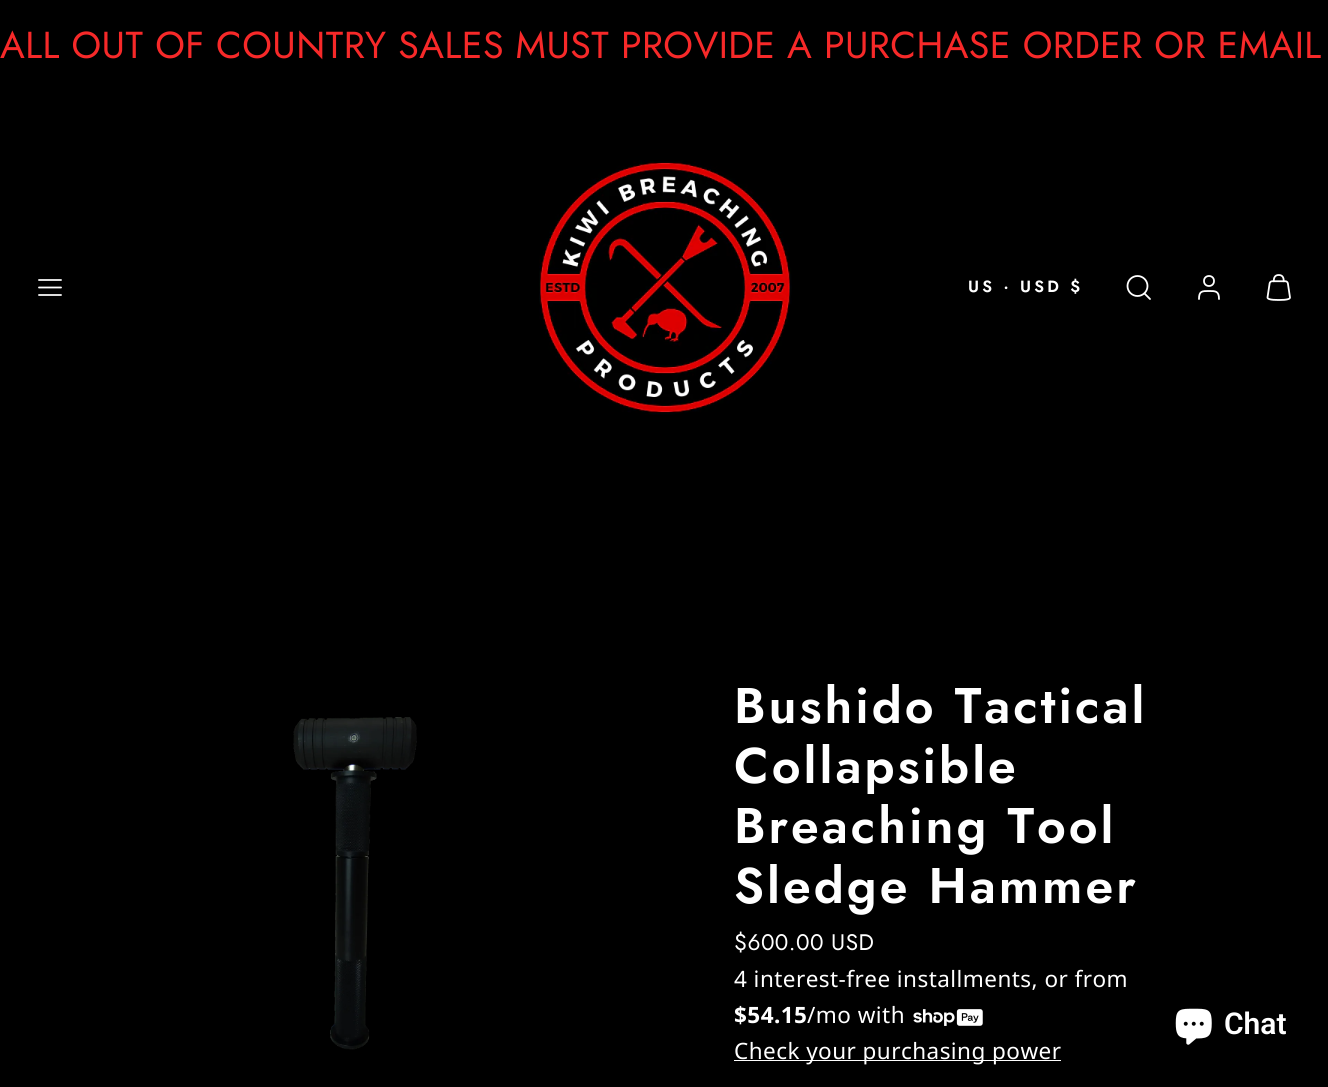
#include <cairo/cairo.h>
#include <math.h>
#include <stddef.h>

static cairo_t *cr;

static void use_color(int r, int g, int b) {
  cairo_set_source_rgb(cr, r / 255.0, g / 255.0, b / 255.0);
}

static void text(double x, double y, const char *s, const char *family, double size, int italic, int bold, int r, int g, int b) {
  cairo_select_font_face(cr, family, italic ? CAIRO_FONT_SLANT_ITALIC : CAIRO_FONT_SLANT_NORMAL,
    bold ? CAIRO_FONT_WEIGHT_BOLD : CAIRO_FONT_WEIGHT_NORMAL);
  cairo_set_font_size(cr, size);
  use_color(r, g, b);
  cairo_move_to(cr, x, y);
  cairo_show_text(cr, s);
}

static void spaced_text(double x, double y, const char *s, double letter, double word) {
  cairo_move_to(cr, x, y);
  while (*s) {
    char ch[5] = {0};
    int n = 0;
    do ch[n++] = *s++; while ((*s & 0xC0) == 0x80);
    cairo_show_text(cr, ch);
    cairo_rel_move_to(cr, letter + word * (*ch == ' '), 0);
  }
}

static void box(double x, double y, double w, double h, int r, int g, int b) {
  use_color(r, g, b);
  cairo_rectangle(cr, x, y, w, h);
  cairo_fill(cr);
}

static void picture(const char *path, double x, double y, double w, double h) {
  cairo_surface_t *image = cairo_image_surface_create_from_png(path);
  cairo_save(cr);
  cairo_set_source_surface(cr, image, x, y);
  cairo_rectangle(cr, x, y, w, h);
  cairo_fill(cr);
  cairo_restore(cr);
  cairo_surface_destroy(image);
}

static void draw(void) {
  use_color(0, 0, 0);
  cairo_paint(cr);
  cairo_new_path(cr);
  cairo_move_to(cr, 39, 287.5);
  cairo_line_to(cr, 61, 287.5);
  cairo_move_to(cr, 39, 280);
  cairo_line_to(cr, 61, 280);
  cairo_move_to(cr, 39, 295);
  cairo_line_to(cr, 61, 295);
  use_color(255, 255, 255);
  cairo_set_line_width(cr, 1.8);
  cairo_set_line_cap(cr, CAIRO_LINE_CAP_ROUND);
  cairo_set_line_join(cr, CAIRO_LINE_JOIN_ROUND);
  cairo_stroke(cr);
  picture("img_01.png", 539, 160, 253, 255);
  cairo_arc(cr, 1137.5, 286, 10, 0, 2 * M_PI);
  cairo_set_line_cap(cr, CAIRO_LINE_CAP_BUTT);
  cairo_set_line_join(cr, CAIRO_LINE_JOIN_MITER);
  cairo_stroke(cr);
  cairo_new_path(cr);
  cairo_move_to(cr, 1150, 299);
  cairo_line_to(cr, 1144.5, 293.5);
  cairo_set_line_cap(cr, CAIRO_LINE_CAP_ROUND);
  cairo_set_line_join(cr, CAIRO_LINE_JOIN_ROUND);
  cairo_stroke(cr);
  cairo_new_path(cr);
  cairo_move_to(cr, 1219, 299);
  cairo_curve_to(cr, 1219, 291, 1215.5, 291, 1209, 291);
  cairo_curve_to(cr, 1202, 291, 1199, 291, 1199, 299);
  cairo_stroke(cr);
  cairo_arc(cr, 1209, 281, 5, 0, 2 * M_PI);
  cairo_set_line_cap(cr, CAIRO_LINE_CAP_BUTT);
  cairo_set_line_join(cr, CAIRO_LINE_JOIN_MITER);
  cairo_stroke(cr);
  picture("img_02.png", 1266, 274, 25, 27);
  picture("img_03.png", 293, 717, 124, 333);
  picture("img_04.png", 913, 1009, 70, 17);
  box(734, 1060, 327, 1, 255, 255, 255);
  picture("img_05.png", 1175, 1008, 37, 37);
  cairo_select_font_face(cr, "Jost", CAIRO_FONT_SLANT_NORMAL, CAIRO_FONT_WEIGHT_NORMAL);
  cairo_set_font_size(cr, 37.5);
  use_color(247, 41, 41);
  spaced_text(0, 58, "ALL OUT OF COUNTRY SALES MUST PROVIDE A PURCHASE ORDER OR EMAIL", 0.45, 0);
  cairo_select_font_face(cr, "Jost SemiBold", CAIRO_FONT_SLANT_NORMAL, CAIRO_FONT_WEIGHT_NORMAL);
  cairo_set_font_size(cr, 16.25);
  use_color(255, 255, 255);
  spaced_text(968, 292, "US · USD $", 3.25, 0);
  cairo_set_font_size(cr, 50);
  spaced_text(734, 723, "Bushido Tactical", 3, 0);
  spaced_text(734, 783, "Collapsible", 3, 0);
  spaced_text(734, 843, "Breaching Tool", 3, 0);
  spaced_text(734, 903, "Sledge Hammer", 3, 0);
  cairo_select_font_face(cr, "Jost", CAIRO_FONT_SLANT_NORMAL, CAIRO_FONT_WEIGHT_NORMAL);
  cairo_set_font_size(cr, 22.5);
  spaced_text(734, 950, "$600.00 USD", 0.45, 0);
  cairo_select_font_face(cr, "Noto Sans", CAIRO_FONT_SLANT_NORMAL, CAIRO_FONT_WEIGHT_NORMAL);
  spaced_text(734, 987, "4 interest-free installments, or from", 0.45, 0);
  cairo_select_font_face(cr, "Noto Sans", CAIRO_FONT_SLANT_NORMAL, CAIRO_FONT_WEIGHT_BOLD);
  spaced_text(734, 1023, "$54.15", 0.45, 0);
  cairo_select_font_face(cr, "Noto Sans", CAIRO_FONT_SLANT_NORMAL, CAIRO_FONT_WEIGHT_NORMAL);
  spaced_text(807, 1023, "/mo with", 0.45, 0);
  spaced_text(734, 1059, "Check your purchasing power", 0.45, 0);
  text(1224, 1034, "Chat", "Roboto SemiBold", 30, 0, 0, 255, 255, 255);
}

int main(void) {
  cairo_surface_t *surface = cairo_image_surface_create(CAIRO_FORMAT_RGB24, 1328, 1087);
  cr = cairo_create(surface);
  cairo_font_options_t *options = cairo_font_options_create();
  cairo_font_options_set_hint_metrics(options, CAIRO_HINT_METRICS_OFF);
  cairo_font_options_set_hint_style(options, CAIRO_HINT_STYLE_NONE);
  cairo_set_font_options(cr, options);
  cairo_set_miter_limit(cr, 4);
  draw();
  cairo_surface_write_to_png(surface, "out.png");
  cairo_font_options_destroy(options);
  cairo_destroy(cr);
  cairo_surface_destroy(surface);
  return 0;
}
